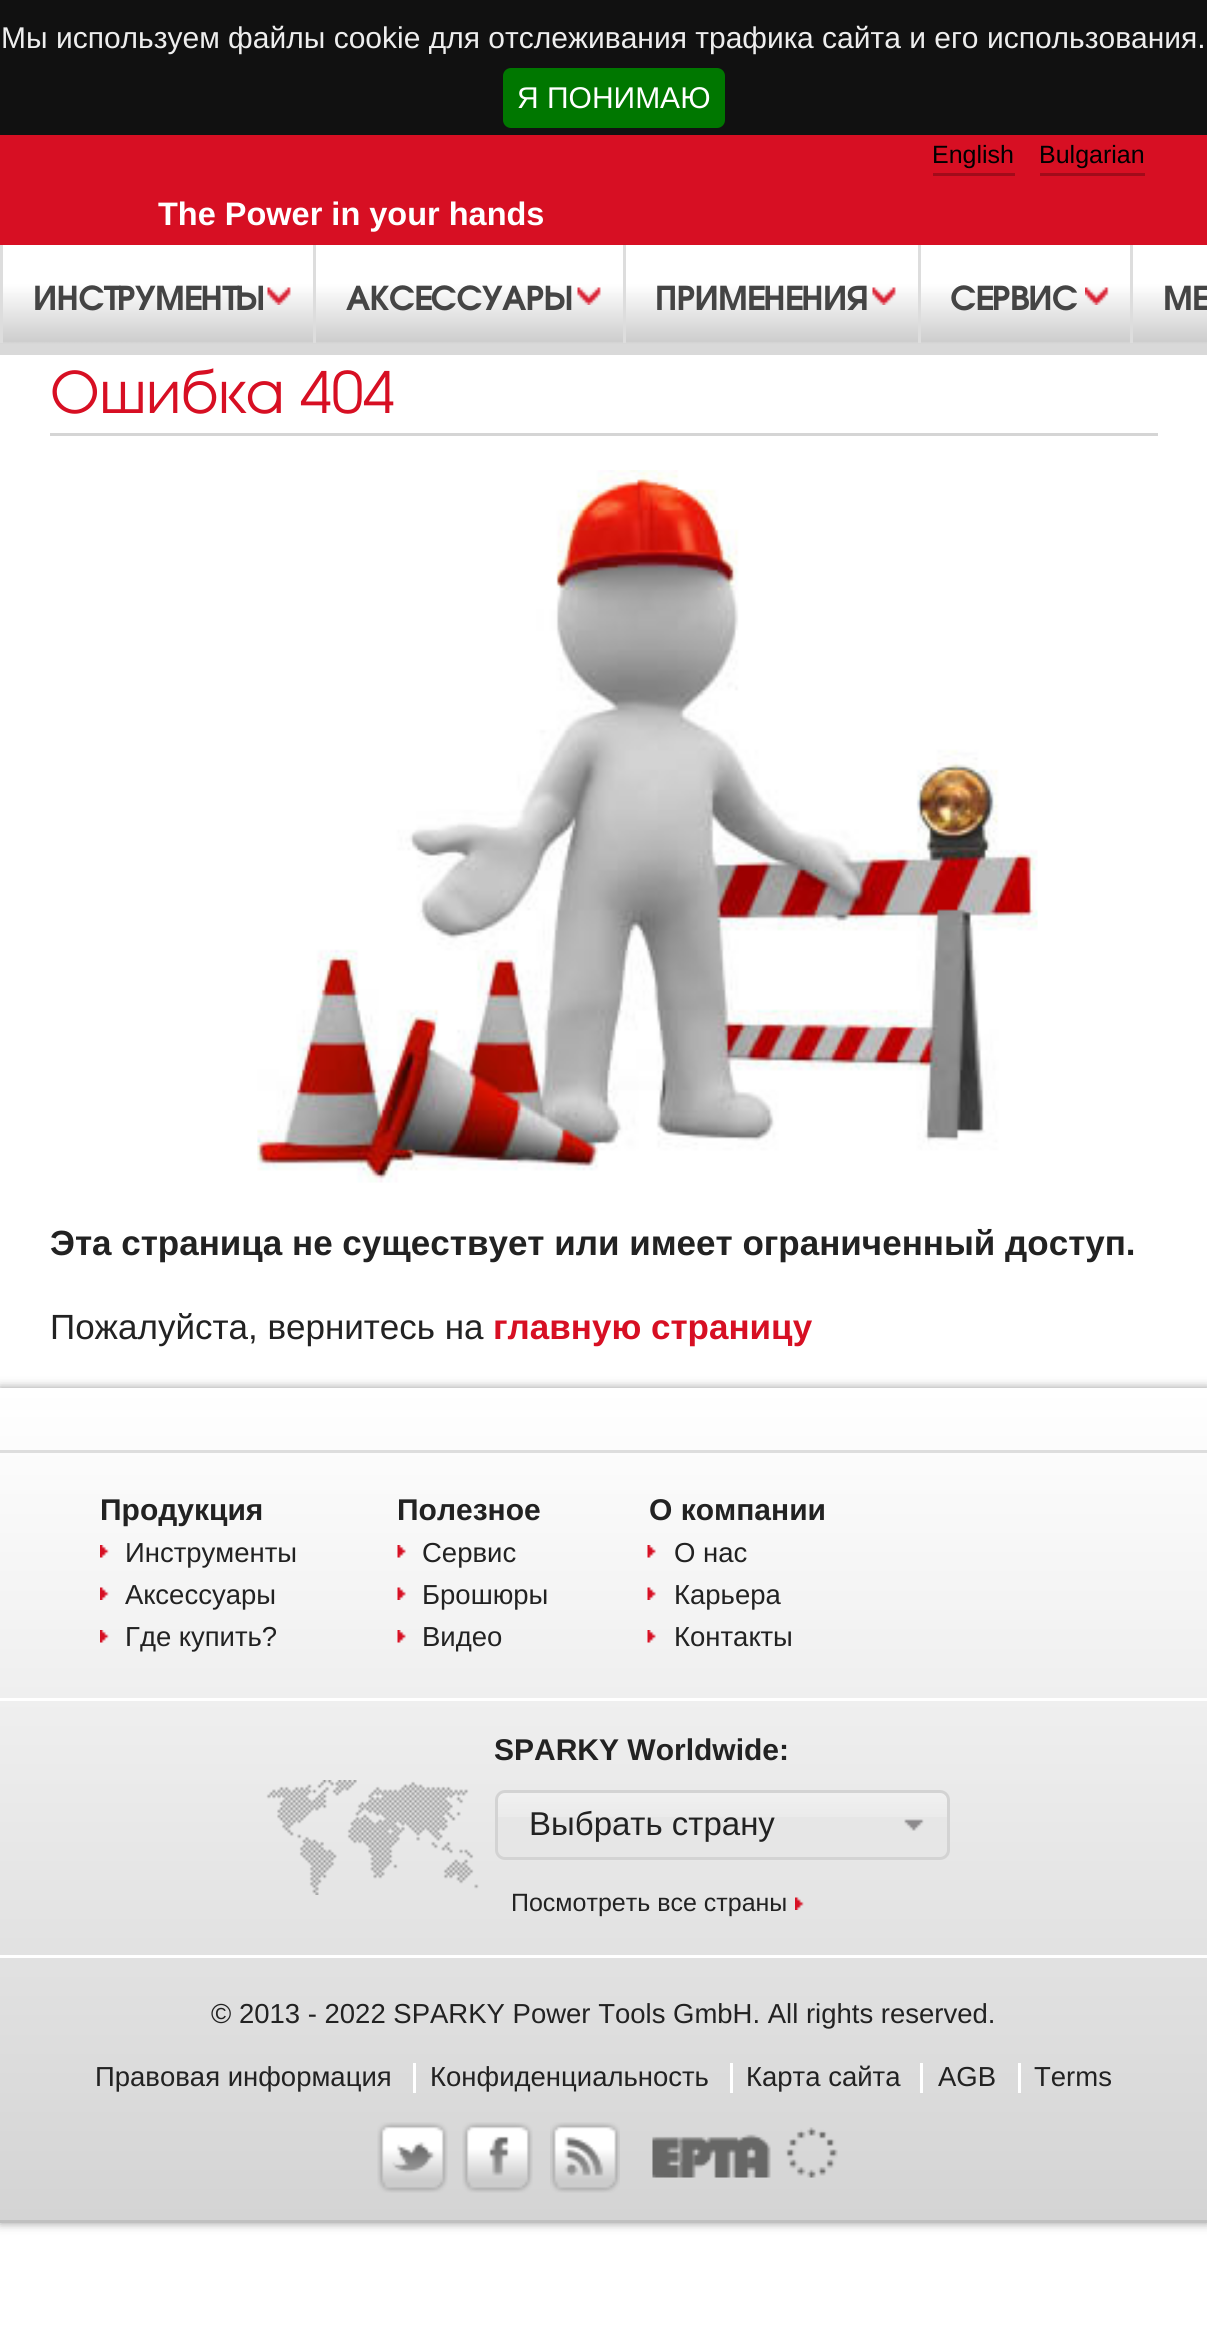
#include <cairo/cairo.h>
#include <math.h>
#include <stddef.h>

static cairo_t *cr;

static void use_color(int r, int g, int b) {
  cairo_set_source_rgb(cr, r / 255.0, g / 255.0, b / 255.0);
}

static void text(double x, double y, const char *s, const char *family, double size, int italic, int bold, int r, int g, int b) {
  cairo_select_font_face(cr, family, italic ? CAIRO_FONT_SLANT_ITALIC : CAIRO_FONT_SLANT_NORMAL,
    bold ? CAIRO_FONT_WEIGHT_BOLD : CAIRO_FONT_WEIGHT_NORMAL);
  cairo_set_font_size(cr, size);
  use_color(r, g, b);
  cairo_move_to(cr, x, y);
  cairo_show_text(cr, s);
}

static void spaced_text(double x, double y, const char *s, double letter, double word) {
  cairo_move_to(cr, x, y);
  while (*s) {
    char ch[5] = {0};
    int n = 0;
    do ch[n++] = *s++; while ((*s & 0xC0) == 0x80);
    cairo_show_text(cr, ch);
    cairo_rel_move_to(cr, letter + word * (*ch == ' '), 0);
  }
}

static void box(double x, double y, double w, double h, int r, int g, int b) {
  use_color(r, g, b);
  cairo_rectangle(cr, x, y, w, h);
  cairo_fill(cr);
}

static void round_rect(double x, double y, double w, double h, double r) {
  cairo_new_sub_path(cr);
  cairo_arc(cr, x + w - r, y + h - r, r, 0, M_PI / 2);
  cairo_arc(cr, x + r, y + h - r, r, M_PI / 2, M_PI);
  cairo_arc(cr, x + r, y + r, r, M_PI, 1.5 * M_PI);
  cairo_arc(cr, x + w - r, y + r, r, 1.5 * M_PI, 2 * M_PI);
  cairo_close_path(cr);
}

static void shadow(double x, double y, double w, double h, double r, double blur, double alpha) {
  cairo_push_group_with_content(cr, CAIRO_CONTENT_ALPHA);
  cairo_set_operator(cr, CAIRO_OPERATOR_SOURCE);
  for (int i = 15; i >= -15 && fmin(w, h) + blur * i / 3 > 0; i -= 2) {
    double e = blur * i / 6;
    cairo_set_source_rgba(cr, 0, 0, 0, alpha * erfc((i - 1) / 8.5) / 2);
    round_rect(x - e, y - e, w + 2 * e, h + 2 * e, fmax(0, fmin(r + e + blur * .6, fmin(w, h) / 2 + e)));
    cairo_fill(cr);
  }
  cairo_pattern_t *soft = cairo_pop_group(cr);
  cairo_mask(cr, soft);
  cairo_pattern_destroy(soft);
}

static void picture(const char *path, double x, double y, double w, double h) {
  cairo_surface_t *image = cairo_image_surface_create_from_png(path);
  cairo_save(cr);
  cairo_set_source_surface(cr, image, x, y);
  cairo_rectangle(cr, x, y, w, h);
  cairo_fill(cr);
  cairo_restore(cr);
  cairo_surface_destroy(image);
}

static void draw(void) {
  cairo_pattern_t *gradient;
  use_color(255, 255, 255);
  cairo_paint(cr);
  box(0, 0, 1207, 135, 17, 17, 17);
  use_color(0, 119, 0);
  round_rect(503, 68, 222, 60, 8);
  cairo_fill(cr);
  box(0, 135, 1207, 110, 215, 15, 35);
  box(933, 173, 82, 3, 161, 11, 26);
  box(1040, 173, 105, 3, 161, 11, 26);
  picture("img_01.png", 0, 245, 1207, 110);
  picture("img_02.png", 267, 287, 24, 18);
  box(0, 245, 3, 98, 221, 221, 221);
  picture("img_03.png", 577, 287, 24, 18);
  box(313, 245, 3, 98, 221, 221, 221);
  picture("img_02.png", 872, 287, 24, 18);
  box(623, 245, 3, 98, 221, 221, 221);
  picture("img_04.png", 1085, 287, 24, 18);
  box(918, 245, 3, 98, 221, 221, 221);
  box(1130, 245, 3, 98, 221, 221, 221);
  box(50, 433, 1108, 3, 213, 213, 213);
  picture("img_05.png", 257, 470, 781, 713);
  use_color(153, 153, 153);
  shadow(0, 1388, 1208, 835, 0, 5, 1);
  gradient = cairo_pattern_create_linear(604, 1388, 604, 2220);
  cairo_pattern_add_color_stop_rgba(gradient, 0, 1, 1, 1, 1);
  cairo_pattern_add_color_stop_rgba(gradient, 1, 0.831, 0.831, 0.831, 1);
  cairo_set_source(cr, gradient);
  cairo_pattern_destroy(gradient);
  cairo_rectangle(cr, 0, 1388, 1207, 832);
  cairo_fill(cr);
  box(0, 2220, 1207, 3, 192, 192, 192);
  box(0, 1450, 1207, 3, 221, 221, 221);
  box(0, 1698, 1207, 3, 255, 255, 255);
  picture("img_06.png", 100, 1545, 9, 13);
  picture("img_07.png", 100, 1587, 9, 13);
  picture("img_08.png", 100, 1630, 9, 13);
  picture("img_09.png", 397, 1545, 9, 13);
  picture("img_10.png", 397, 1587, 9, 13);
  picture("img_11.png", 397, 1630, 9, 13);
  picture("img_12.png", 647, 1545, 9, 13);
  picture("img_13.png", 647, 1587, 9, 13);
  picture("img_14.png", 647, 1630, 9, 13);
  picture("img_15.png", 266, 1780, 213, 115);
  use_color(230, 230, 230);
  round_rect(495, 1790, 455, 70, 10);
  cairo_fill(cr);
  picture("img_16.png", 495, 1790, 455, 27);
  round_rect(496.5, 1791.5, 452, 67, 8.5);
  use_color(211, 211, 211);
  cairo_set_line_width(cr, 3);
  cairo_stroke(cr);
  picture("img_17.png", 904, 1819, 20, 12);
  picture("img_18.png", 795, 1897, 9, 13);
  box(0, 1955, 1207, 3, 255, 255, 255);
  box(413, 2063, 3, 30, 255, 255, 255);
  box(730, 2063, 3, 30, 255, 255, 255);
  box(920, 2063, 3, 30, 255, 255, 255);
  box(1018, 2063, 3, 30, 255, 255, 255);
  picture("img_19.png", 377, 2122, 71, 71);
  picture("img_20.png", 462, 2122, 71, 71);
  picture("img_21.png", 550, 2122, 70, 71);
  picture("img_22.png", 652, 2127, 186, 51);
  text(1, 48, "Мы используем файлы cookie для отслеживания трафика сайта и его использования.", "Liberation Sans", 30, 0, 0, 238, 238, 238);
  text(517, 108, "Я ПОНИМАЮ", "Liberation Sans", 30, 0, 0, 255, 255, 255);
  text(932, 163, "English", "Liberation Sans", 25, 0, 0, 0, 0, 0);
  text(1039, 163, "Bulgarian", "Liberation Sans", 25, 0, 0, 0, 0, 0);
  text(158, 225, "The Power in your hands", "Liberation Sans", 32.5, 0, 1, 255, 255, 255);
  cairo_select_font_face(cr, "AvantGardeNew", CAIRO_FONT_SLANT_NORMAL, CAIRO_FONT_WEIGHT_BOLD);
  cairo_set_font_size(cr, 35);
  use_color(68, 68, 68);
  spaced_text(33, 310, "ИНСТРУМЕНТЫ", -0.75, 0);
  spaced_text(346, 310, "АКСЕССУАРЫ", -0.75, 0);
  spaced_text(655, 310, "ПРИМЕНЕНИЯ", -0.75, 0);
  spaced_text(950, 310, "СЕРВИС", -0.75, 0);
  spaced_text(1163, 310, "МЕ", -0.75, 0);
  text(50, 413, "Oшибка 404", "AvantGardeNew", 60, 0, 0, 215, 15, 35);
  text(50, 1255, "Эта страница не существует или имеет ограниченный доступ.", "Liberation Sans", 35, 0, 1, 34, 34, 34);
  text(50, 1339, "Пожалуйста, вернитесь на", "Liberation Sans", 35, 0, 0, 34, 34, 34);
  text(493, 1339, "главную страницу", "Liberation Sans", 35, 0, 1, 215, 15, 35);
  text(100, 1520, "Продукция", "Liberation Sans", 30, 0, 1, 34, 34, 34);
  text(125, 1562, "Инструменты", "Liberation Sans", 27.5, 0, 0, 34, 34, 34);
  text(125, 1604, "Аксессуары", "Liberation Sans", 27.5, 0, 0, 34, 34, 34);
  text(125, 1646, "Где купить?", "Liberation Sans", 27.5, 0, 0, 34, 34, 34);
  text(397, 1520, "Полезное", "Liberation Sans", 30, 0, 1, 34, 34, 34);
  text(422, 1562, "Сервис", "Liberation Sans", 27.5, 0, 0, 34, 34, 34);
  text(422, 1604, "Брошюры", "Liberation Sans", 27.5, 0, 0, 34, 34, 34);
  text(422, 1646, "Видео", "Liberation Sans", 27.5, 0, 0, 34, 34, 34);
  text(649, 1520, "О компании", "Liberation Sans", 30, 0, 1, 34, 34, 34);
  text(674, 1562, "О нас", "Liberation Sans", 27.5, 0, 0, 34, 34, 34);
  text(674, 1604, "Карьера", "Liberation Sans", 27.5, 0, 0, 34, 34, 34);
  text(674, 1646, "Контакты", "Liberation Sans", 27.5, 0, 0, 34, 34, 34);
  text(494, 1760, "SPARKY Worldwide:", "Liberation Sans", 30, 0, 1, 34, 34, 34);
  text(529, 1835, "Выбрать страну", "Liberation Sans", 33, 0, 0, 34, 34, 34);
  text(511, 1911, "Посмотреть все страны", "Liberation Sans", 25, 0, 0, 34, 34, 34);
  text(211, 2023, "© 2013 - 2022 SPARKY Power Tools GmbH. All rights reserved.", "Liberation Sans", 27.5, 0, 0, 34, 34, 34);
  text(95, 2086, "Правовая информация", "Liberation Sans", 27.5, 0, 0, 34, 34, 34);
  text(430, 2086, "Конфиденциальность", "Liberation Sans", 27.5, 0, 0, 34, 34, 34);
  text(746, 2086, "Карта сайта", "Liberation Sans", 27.5, 0, 0, 34, 34, 34);
  text(938, 2086, "AGB", "Liberation Sans", 27.5, 0, 0, 34, 34, 34);
  text(1034, 2086, "Terms", "Liberation Sans", 27.5, 0, 0, 34, 34, 34);
}

int main(void) {
  cairo_surface_t *surface = cairo_image_surface_create(CAIRO_FORMAT_RGB24, 1207, 2350);
  cr = cairo_create(surface);
  cairo_font_options_t *options = cairo_font_options_create();
  cairo_font_options_set_hint_metrics(options, CAIRO_HINT_METRICS_OFF);
  cairo_font_options_set_hint_style(options, CAIRO_HINT_STYLE_NONE);
  cairo_set_font_options(cr, options);
  cairo_set_miter_limit(cr, 4);
  draw();
  cairo_surface_write_to_png(surface, "out.png");
  cairo_font_options_destroy(options);
  cairo_destroy(cr);
  cairo_surface_destroy(surface);
  return 0;
}
